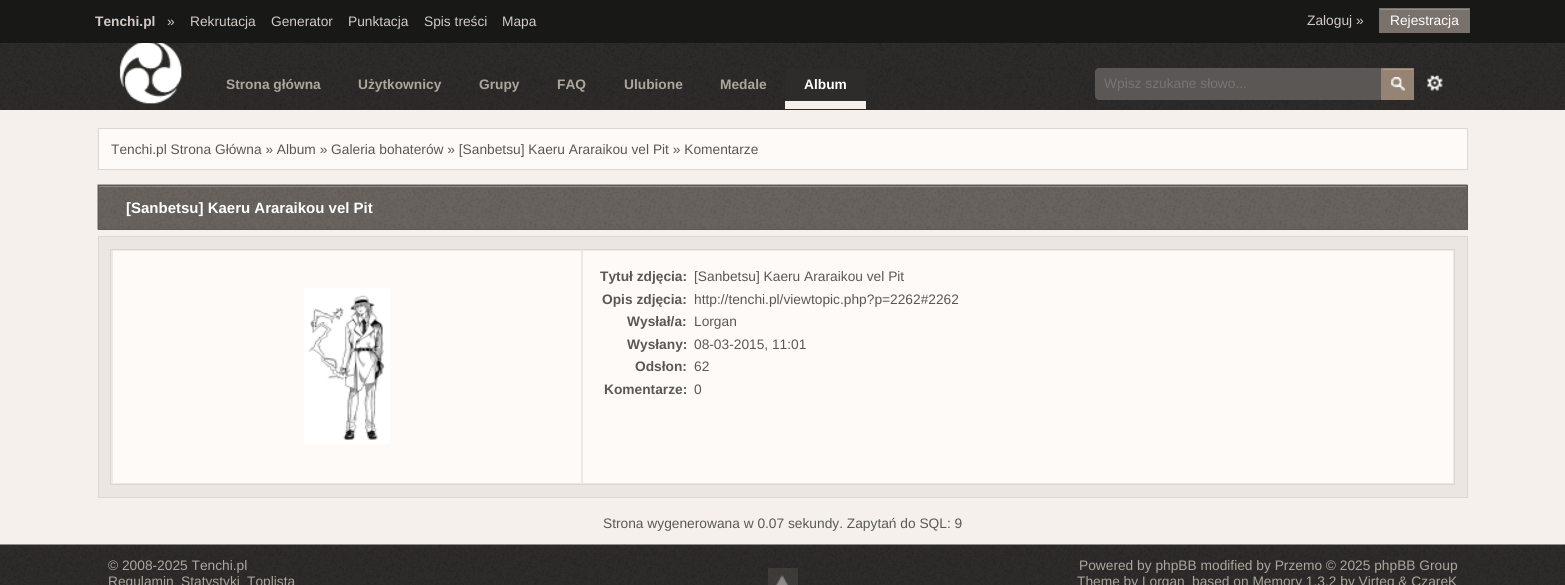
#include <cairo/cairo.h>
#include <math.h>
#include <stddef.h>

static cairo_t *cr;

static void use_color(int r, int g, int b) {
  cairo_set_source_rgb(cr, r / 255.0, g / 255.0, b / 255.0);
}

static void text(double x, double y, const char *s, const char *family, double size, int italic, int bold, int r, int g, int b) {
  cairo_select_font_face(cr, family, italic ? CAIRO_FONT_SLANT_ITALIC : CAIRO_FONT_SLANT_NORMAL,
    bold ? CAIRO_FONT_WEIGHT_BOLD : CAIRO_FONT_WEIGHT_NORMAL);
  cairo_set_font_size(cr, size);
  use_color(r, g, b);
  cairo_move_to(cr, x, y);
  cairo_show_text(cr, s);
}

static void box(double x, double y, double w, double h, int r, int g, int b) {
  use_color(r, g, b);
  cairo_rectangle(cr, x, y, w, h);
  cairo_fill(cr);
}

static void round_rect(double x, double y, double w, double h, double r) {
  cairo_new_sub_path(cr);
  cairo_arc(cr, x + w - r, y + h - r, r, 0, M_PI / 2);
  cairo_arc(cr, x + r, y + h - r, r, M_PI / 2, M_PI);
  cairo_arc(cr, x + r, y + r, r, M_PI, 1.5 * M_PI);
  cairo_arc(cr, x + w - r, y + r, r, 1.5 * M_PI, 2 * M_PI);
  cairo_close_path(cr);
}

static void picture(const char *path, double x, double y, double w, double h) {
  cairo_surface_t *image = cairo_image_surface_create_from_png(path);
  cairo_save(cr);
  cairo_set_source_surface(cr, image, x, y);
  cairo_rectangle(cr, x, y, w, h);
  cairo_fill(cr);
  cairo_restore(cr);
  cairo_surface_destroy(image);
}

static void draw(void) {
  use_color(245, 240, 235);
  cairo_paint(cr);
  box(0, 0, 1565, 43, 24, 24, 23);
  box(1379, 8, 91, 25, 121, 113, 107);
  box(1380, 9, 89, 1, 148, 141, 137);
  box(0, 109, 1565, 1, 46, 44, 42);
  picture("img_01.png", 0, 43, 1565, 67);
  picture("img_02.png", 95, 43, 111, 66);
  box(785, 69, 81, 32, 46, 44, 42);
  box(785, 101, 81, 8, 245, 240, 235);
  use_color(91, 87, 84);
  round_rect(1095, 68, 288, 32, 4);
  cairo_fill(cr);
  box(1381, 68, 33, 32, 149, 132, 116);
  picture("img_03.png", 1391, 77, 14, 14);
  box(1383, 69, 30, 1, 170, 157, 144);
  picture("img_04.png", 1427, 75, 16, 16);
  use_color(253, 250, 247);
  cairo_rectangle(cr, 98.5, 128.5, 1369, 41);
  cairo_fill_preserve(cr);
  use_color(220, 215, 211);
  cairo_set_line_width(cr, 1);
  cairo_stroke(cr);
  picture("img_05.png", 97, 184, 1371, 46);
  box(99, 186, 1367, 1, 143, 136, 129);
  cairo_rectangle(cr, 98.5, 185.5, 1369, 44);
  use_color(94, 89, 85);
  cairo_stroke(cr);
  use_color(235, 230, 225);
  cairo_rectangle(cr, 98.5, 236.5, 1369, 261);
  cairo_fill_preserve(cr);
  use_color(220, 215, 211);
  cairo_stroke(cr);
  cairo_rectangle(cr, 110.5, 249.5, 1344, 235);
  use_color(220, 214, 209);
  cairo_stroke(cr);
  box(111, 250, 1343, 234, 238, 232, 227);
  box(113, 251, 468, 232, 253, 250, 247);
  picture("img_06.png", 304, 288, 86, 157);
  box(583, 251, 870, 232, 253, 250, 247);
  picture("img_07.png", 0, 544, 1565, 41);
  cairo_set_source_rgba(cr, 0.341, 0.329, 0.306, 0.4);
  cairo_rectangle(cr, 768, 568, 30, 17);
  cairo_fill(cr);
  picture("img_08.png", 776, 575, 13, 10);
  text(95, 26, "Tenchi.pl", "Liberation Sans", 13.75, 0, 1, 209, 202, 197);
  text(167, 26, "»", "Liberation Sans", 13.75, 0, 0, 209, 202, 197);
  text(190, 26, "Rekrutacja", "Liberation Sans", 13.75, 0, 0, 209, 202, 197);
  text(271, 26, "Generator", "Liberation Sans", 13.75, 0, 0, 209, 202, 197);
  text(348, 26, "Punktacja", "Liberation Sans", 13.75, 0, 0, 209, 202, 197);
  text(424, 26, "Spis treści", "Liberation Sans", 13.75, 0, 0, 209, 202, 197);
  text(502, 26, "Mapa", "Liberation Sans", 13.75, 0, 0, 209, 202, 197);
  text(1307, 25, "Zaloguj »", "Liberation Sans", 13.75, 0, 0, 209, 202, 197);
  text(1390, 25, "Rejestracja", "Liberation Sans", 13.75, 0, 0, 255, 255, 255);
  text(226, 89, "Strona główna", "Liberation Sans", 13.75, 0, 1, 171, 167, 158);
  text(358, 89, "Użytkownicy", "Liberation Sans", 13.75, 0, 1, 171, 167, 158);
  text(479, 89, "Grupy", "Liberation Sans", 13.75, 0, 1, 171, 167, 158);
  text(557, 89, "FAQ", "Liberation Sans", 13.75, 0, 1, 171, 167, 158);
  text(624, 89, "Ulubione", "Liberation Sans", 13.75, 0, 1, 171, 167, 158);
  text(720, 89, "Medale", "Liberation Sans", 13.75, 0, 1, 171, 167, 158);
  text(804, 89, "Album", "Liberation Sans", 13.75, 0, 1, 255, 255, 255);
  text(1104, 88, "Wpisz szukane słowo...", "Liberation Sans", 13.75, 0, 0, 117, 117, 117);
  text(111, 154, "Tenchi.pl Strona Główna » Album » Galeria bohaterów » [Sanbetsu] Kaeru Araraikou vel Pit » Komentarze", "Liberation Sans", 13.75, 0, 0, 90, 88, 84);
  text(126, 213, "[Sanbetsu] Kaeru Araraikou vel Pit", "Liberation Sans", 15, 0, 1, 255, 255, 255);
  text(600, 281, "Tytuł zdjęcia:", "Liberation Sans", 13.75, 0, 1, 90, 88, 84);
  text(694, 281, "[Sanbetsu] Kaeru Araraikou vel Pit", "Liberation Sans", 13.75, 0, 0, 90, 88, 84);
  text(602, 304, "Opis zdjęcia:", "Liberation Sans", 13.75, 0, 1, 90, 88, 84);
  text(694, 304, "http://tenchi.pl/viewtopic.php?p=2262#2262", "Liberation Sans", 13.75, 0, 0, 90, 88, 84);
  text(627, 326, "Wysłał/a:", "Liberation Sans", 13.75, 0, 1, 90, 88, 84);
  text(694, 326, "Lorgan", "Liberation Sans", 13.75, 0, 0, 90, 88, 84);
  text(627, 349, "Wysłany:", "Liberation Sans", 13.75, 0, 1, 90, 88, 84);
  text(694, 349, "08-03-2015, 11:01", "Liberation Sans", 13.75, 0, 0, 90, 88, 84);
  text(635, 371, "Odsłon:", "Liberation Sans", 13.75, 0, 1, 90, 88, 84);
  text(694, 371, "62", "Liberation Sans", 13.75, 0, 0, 90, 88, 84);
  text(604, 394, "Komentarze:", "Liberation Sans", 13.75, 0, 1, 90, 88, 84);
  text(694, 394, "0", "Liberation Sans", 13.75, 0, 0, 90, 88, 84);
  text(603, 528, "Strona wygenerowana w 0.07 sekundy. Zapytań do SQL: 9", "Liberation Sans", 13.75, 0, 0, 90, 88, 84);
  text(108, 570, "© 2008-2025 Tenchi.pl", "Liberation Sans", 13.75, 0, 0, 171, 167, 158);
  text(108, 586, "Regulamin", "Liberation Sans", 13.75, 0, 0, 171, 167, 158);
  text(181, 586, "Statystyki", "Liberation Sans", 13.75, 0, 0, 171, 167, 158);
  text(247, 586, "Toplista", "Liberation Sans", 13.75, 0, 0, 171, 167, 158);
  text(1079, 570, "Powered by phpBB modified by Przemo © 2025 phpBB Group", "Liberation Sans", 13.75, 0, 0, 171, 167, 158);
  text(1077, 586, "Theme by Lorgan", "Liberation Sans", 13.75, 0, 0, 171, 167, 158);
  text(1192, 586, "based on Memory 1.3.2 by Virteq & CzareK", "Liberation Sans", 13.75, 0, 0, 171, 167, 158);
}

int main(void) {
  cairo_surface_t *surface = cairo_image_surface_create(CAIRO_FORMAT_RGB24, 1565, 585);
  cr = cairo_create(surface);
  cairo_font_options_t *options = cairo_font_options_create();
  cairo_font_options_set_hint_metrics(options, CAIRO_HINT_METRICS_OFF);
  cairo_font_options_set_hint_style(options, CAIRO_HINT_STYLE_NONE);
  cairo_set_font_options(cr, options);
  cairo_set_miter_limit(cr, 4);
  draw();
  cairo_surface_write_to_png(surface, "out.png");
  cairo_font_options_destroy(options);
  cairo_destroy(cr);
  cairo_surface_destroy(surface);
  return 0;
}
